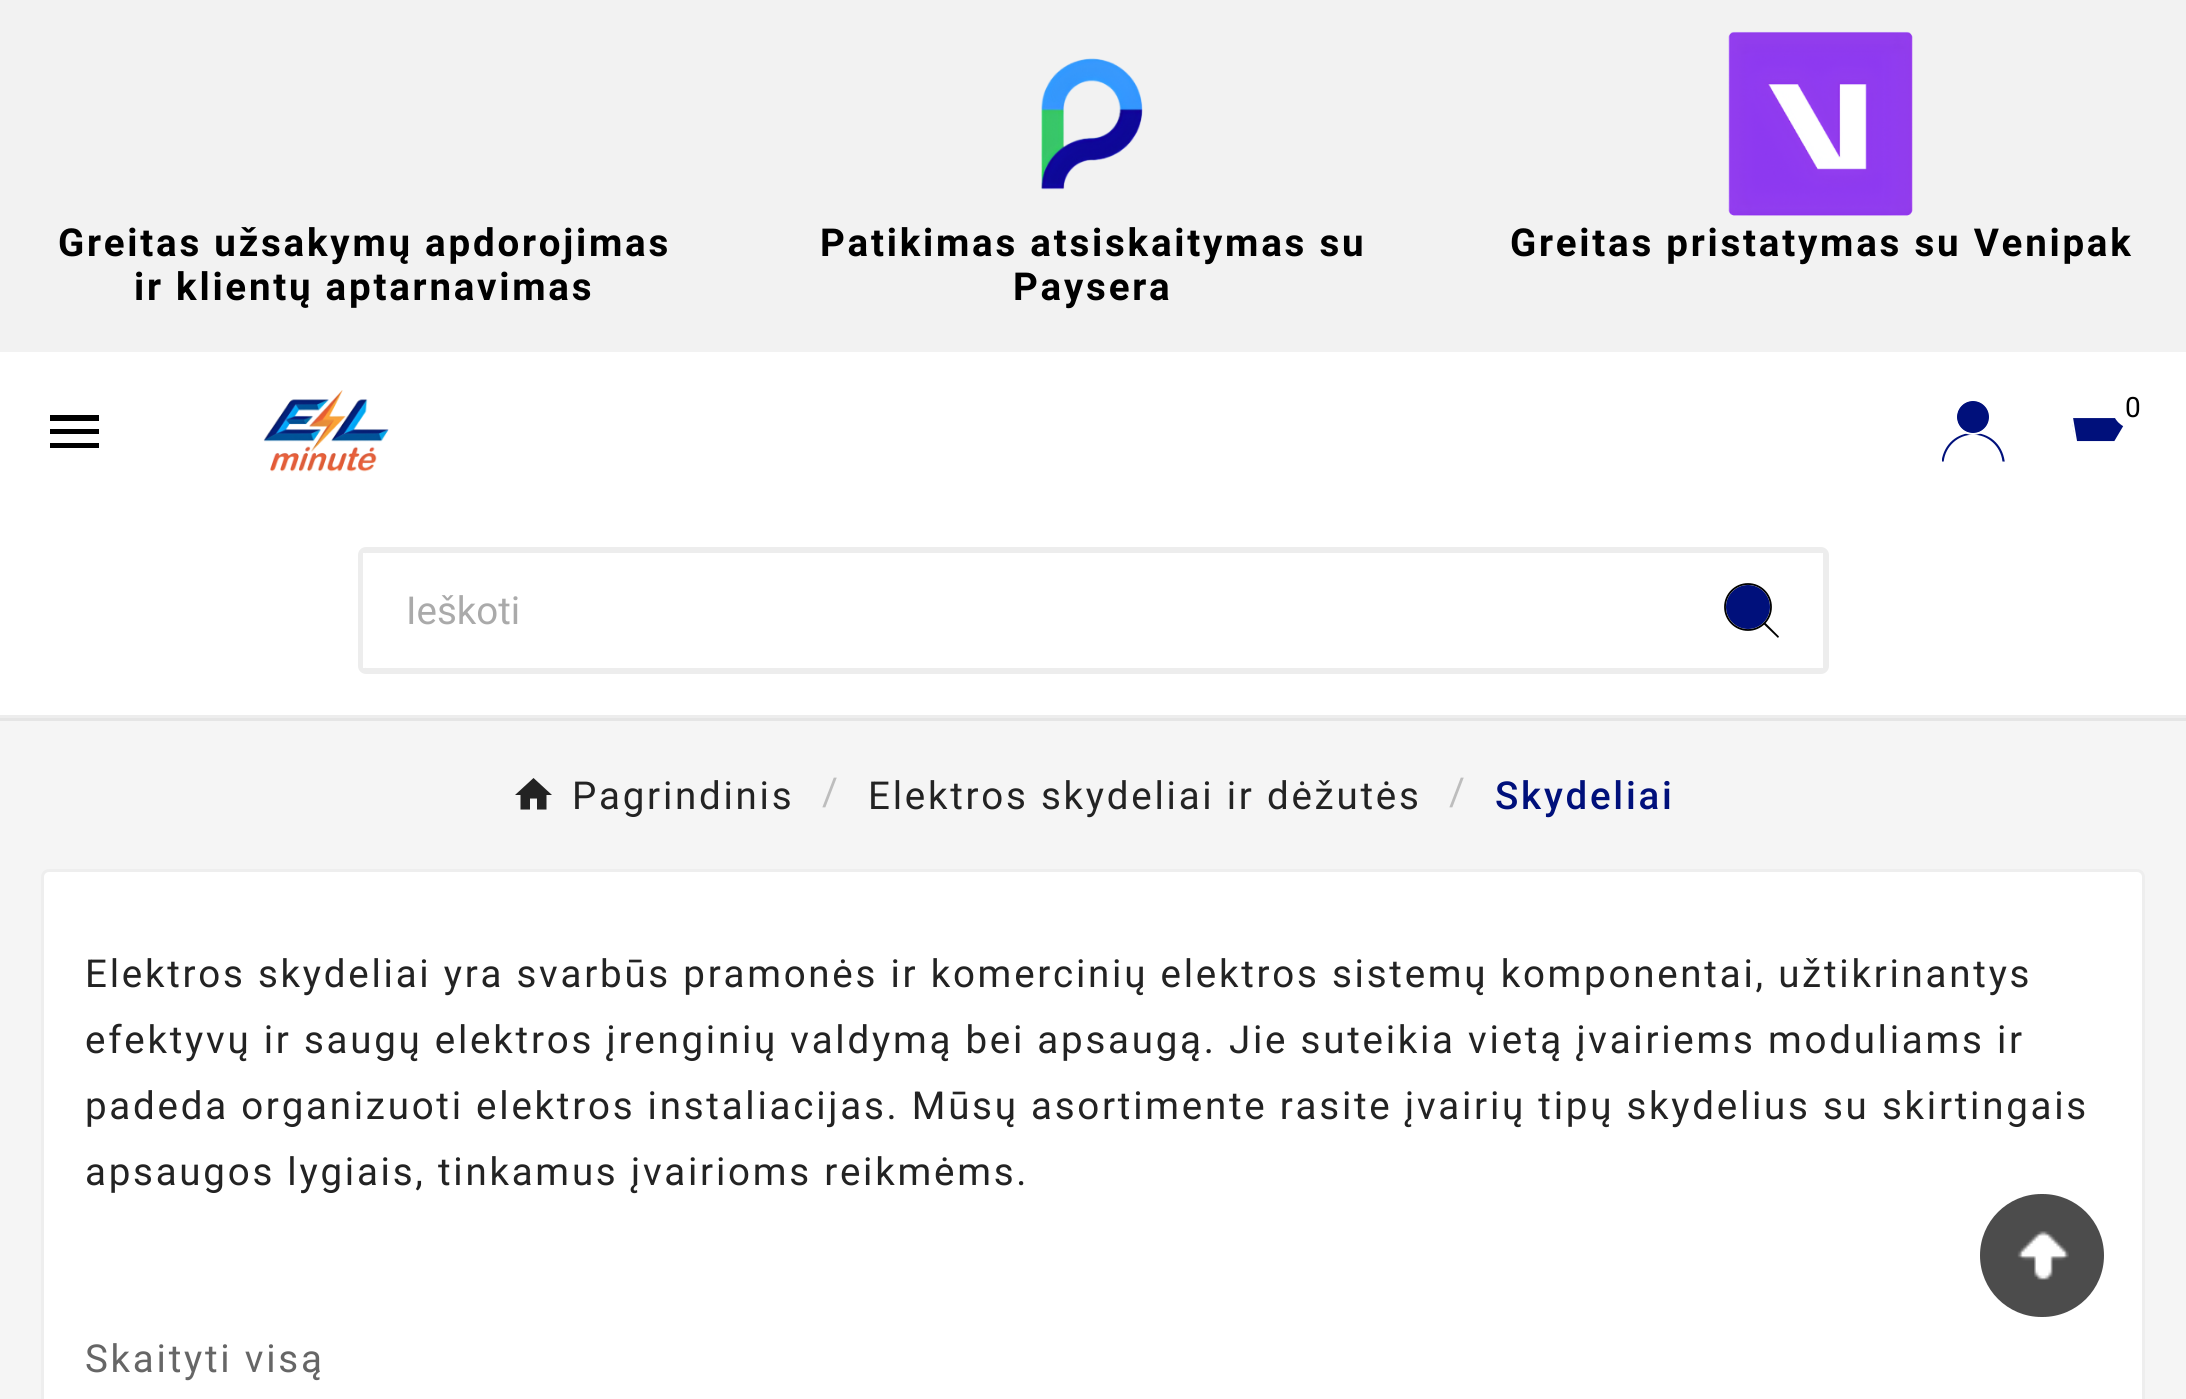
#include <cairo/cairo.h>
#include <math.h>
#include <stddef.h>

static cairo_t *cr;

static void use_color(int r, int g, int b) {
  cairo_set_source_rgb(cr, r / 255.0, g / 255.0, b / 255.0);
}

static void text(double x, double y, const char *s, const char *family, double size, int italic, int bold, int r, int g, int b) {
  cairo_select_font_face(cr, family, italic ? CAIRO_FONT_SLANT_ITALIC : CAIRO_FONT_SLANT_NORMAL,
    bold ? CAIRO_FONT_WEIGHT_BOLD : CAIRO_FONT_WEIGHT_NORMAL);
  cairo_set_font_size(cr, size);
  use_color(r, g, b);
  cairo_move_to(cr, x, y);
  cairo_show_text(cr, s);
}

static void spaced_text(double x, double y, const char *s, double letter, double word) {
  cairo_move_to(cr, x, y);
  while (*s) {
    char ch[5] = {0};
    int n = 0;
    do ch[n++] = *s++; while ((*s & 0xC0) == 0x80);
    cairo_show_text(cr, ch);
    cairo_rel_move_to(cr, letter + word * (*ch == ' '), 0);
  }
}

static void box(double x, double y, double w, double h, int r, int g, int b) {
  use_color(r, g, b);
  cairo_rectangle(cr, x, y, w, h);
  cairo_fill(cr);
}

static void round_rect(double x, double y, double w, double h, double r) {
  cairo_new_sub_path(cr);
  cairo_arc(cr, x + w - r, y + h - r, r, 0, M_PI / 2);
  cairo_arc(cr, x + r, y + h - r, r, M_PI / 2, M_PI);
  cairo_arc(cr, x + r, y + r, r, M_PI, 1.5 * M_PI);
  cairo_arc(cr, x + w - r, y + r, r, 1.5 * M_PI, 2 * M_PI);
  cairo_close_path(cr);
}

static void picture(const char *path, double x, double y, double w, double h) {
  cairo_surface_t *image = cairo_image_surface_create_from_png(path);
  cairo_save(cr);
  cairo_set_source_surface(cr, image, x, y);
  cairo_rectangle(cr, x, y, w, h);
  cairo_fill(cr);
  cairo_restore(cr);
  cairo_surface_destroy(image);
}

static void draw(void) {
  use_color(242, 242, 242);
  cairo_paint(cr);
  picture("img_01.png", 1041, 58, 102, 132);
  picture("img_02.png", 1728, 31, 185, 185);
  box(0, 721, 2186, 678, 245, 245, 245);
  box(0, 352, 2186, 363, 255, 255, 255);
  box(0, 718, 2186, 3, 229, 229, 229);
  box(0, 715, 2186, 3, 237, 237, 237);
  picture("img_03.png", 263, 390, 126, 82);
  picture("img_04.png", 1942, 401, 63, 61);
  picture("img_05.png", 2072, 418, 53, 24);
  use_color(255, 255, 255);
  cairo_arc(cr, 2134, 407, 22, 0, 2 * M_PI);
  cairo_fill(cr);
  use_color(0, 0, 0);
  cairo_new_path(cr);
  cairo_move_to(cr, 50, 415);
  cairo_line_to(cr, 99, 415);
  cairo_line_to(cr, 99, 421);
  cairo_line_to(cr, 50, 421);
  cairo_close_path(cr);
  cairo_move_to(cr, 50, 434);
  cairo_line_to(cr, 50, 429);
  cairo_line_to(cr, 99, 429);
  cairo_line_to(cr, 99, 434);
  cairo_close_path(cr);
  cairo_move_to(cr, 50, 448);
  cairo_line_to(cr, 50, 443);
  cairo_line_to(cr, 99, 443);
  cairo_line_to(cr, 99, 448);
  cairo_close_path(cr);
  cairo_fill(cr);
  round_rect(361, 550, 1465, 121, 5);
  use_color(237, 237, 237);
  cairo_set_line_width(cr, 6);
  cairo_stroke(cr);
  box(363, 553, 2, 115, 255, 255, 255);
  box(1822, 553, 1, 115, 255, 255, 255);
  use_color(0, 0, 0);
  cairo_new_path(cr);
  cairo_move_to(cr, 1778, 638);
  cairo_line_to(cr, 1763.5, 624);
  cairo_line_to(cr, 1765, 622.5);
  cairo_line_to(cr, 1779, 636.5);
  cairo_close_path(cr);
  cairo_fill(cr);
  use_color(0, 16, 123);
  cairo_arc(cr, 1748, 607, 22, 0, 2 * M_PI);
  cairo_fill(cr);
  cairo_arc(cr, 1748, 607, 23, 0, 2 * M_PI);
  use_color(0, 0, 0);
  cairo_set_line_width(cr, 1.8);
  cairo_stroke(cr);
  use_color(35, 35, 35);
  cairo_new_path(cr);
  cairo_move_to(cr, 530, 809.5);
  cairo_line_to(cr, 520.5, 809.5);
  cairo_line_to(cr, 520.5, 795);
  cairo_line_to(cr, 515, 795);
  cairo_line_to(cr, 533.5, 778);
  cairo_line_to(cr, 552, 795);
  cairo_line_to(cr, 546.5, 795);
  cairo_line_to(cr, 546.5, 809.5);
  cairo_line_to(cr, 537, 809.5);
  cairo_line_to(cr, 537, 798.5);
  cairo_line_to(cr, 530, 798.5);
  cairo_close_path(cr);
  cairo_fill(cr);
  use_color(255, 255, 255);
  round_rect(41, 869, 2104, 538, 8);
  cairo_fill(cr);
  round_rect(42.5, 870.5, 2101, 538, 6.5);
  cairo_set_source_rgba(cr, 0, 0, 0, 0.07);
  cairo_set_line_width(cr, 3);
  cairo_stroke(cr);
  use_color(76, 76, 76);
  round_rect(1980, 1194, 124, 123, 61.5);
  cairo_fill(cr);
  picture("img_06.png", 2017, 1231, 52, 49);
  cairo_select_font_face(cr, "Roboto", CAIRO_FONT_SLANT_NORMAL, CAIRO_FONT_WEIGHT_BOLD);
  cairo_set_font_size(cr, 38.5);
  use_color(0, 0, 0);
  spaced_text(58, 256, "Greitas užsakymų apdorojimas", 2.75, 0);
  spaced_text(134, 300, "ir klientų aptarnavimas", 2.75, 0);
  spaced_text(820, 256, "Patikimas atsiskaitymas su", 2.75, 0);
  spaced_text(1013, 300, "Paysera", 2.75, 0);
  spaced_text(1510, 256, "Greitas pristatymas su Venipak", 2.75, 0);
  cairo_select_font_face(cr, "Roboto", CAIRO_FONT_SLANT_NORMAL, CAIRO_FONT_WEIGHT_NORMAL);
  cairo_set_font_size(cr, 28);
  spaced_text(2125, 417, "0", 2.75, 0);
  text(406, 624, "Ieškoti", "Roboto", 38.5, 0, 0, 170, 170, 170);
  use_color(35, 35, 35);
  spaced_text(572, 809, "Pagrindinis", 2.75, 0);
  use_color(189, 189, 189);
  spaced_text(822, 805, "/", 2.75, 0);
  use_color(35, 35, 35);
  spaced_text(868, 809, "Elektros skydeliai ir dėžutės", 2.75, 0);
  use_color(189, 189, 189);
  spaced_text(1449, 805, "/", 2.75, 0);
  cairo_select_font_face(cr, "Roboto Medium", CAIRO_FONT_SLANT_NORMAL, CAIRO_FONT_WEIGHT_NORMAL);
  use_color(0, 16, 123);
  spaced_text(1495, 809, "Skydeliai", 2.75, 0);
  cairo_select_font_face(cr, "Roboto", CAIRO_FONT_SLANT_NORMAL, CAIRO_FONT_WEIGHT_NORMAL);
  use_color(35, 35, 35);
  spaced_text(85, 987, "Elektros skydeliai yra svarbūs pramonės ir komercinių elektros sistemų komponentai, užtikrinantys", 2.75, 0);
  spaced_text(85, 1053, "efektyvų ir saugų elektros įrenginių valdymą bei apsaugą. Jie suteikia vietą įvairiems moduliams ir", 2.75, 0);
  spaced_text(85, 1119, "padeda organizuoti elektros instaliacijas. Mūsų asortimente rasite įvairių tipų skydelius su skirtingais", 2.75, 0);
  spaced_text(85, 1185, "apsaugos lygiais, tinkamus įvairioms reikmėms.", 2.75, 0);
  use_color(102, 102, 102);
  spaced_text(85, 1372, "Skaityti visą", 2.75, 0);
}

int main(void) {
  cairo_surface_t *surface = cairo_image_surface_create(CAIRO_FORMAT_RGB24, 2186, 1399);
  cr = cairo_create(surface);
  cairo_font_options_t *options = cairo_font_options_create();
  cairo_font_options_set_hint_metrics(options, CAIRO_HINT_METRICS_OFF);
  cairo_font_options_set_hint_style(options, CAIRO_HINT_STYLE_NONE);
  cairo_set_font_options(cr, options);
  cairo_set_miter_limit(cr, 4);
  draw();
  cairo_surface_write_to_png(surface, "out.png");
  cairo_font_options_destroy(options);
  cairo_destroy(cr);
  cairo_surface_destroy(surface);
  return 0;
}
